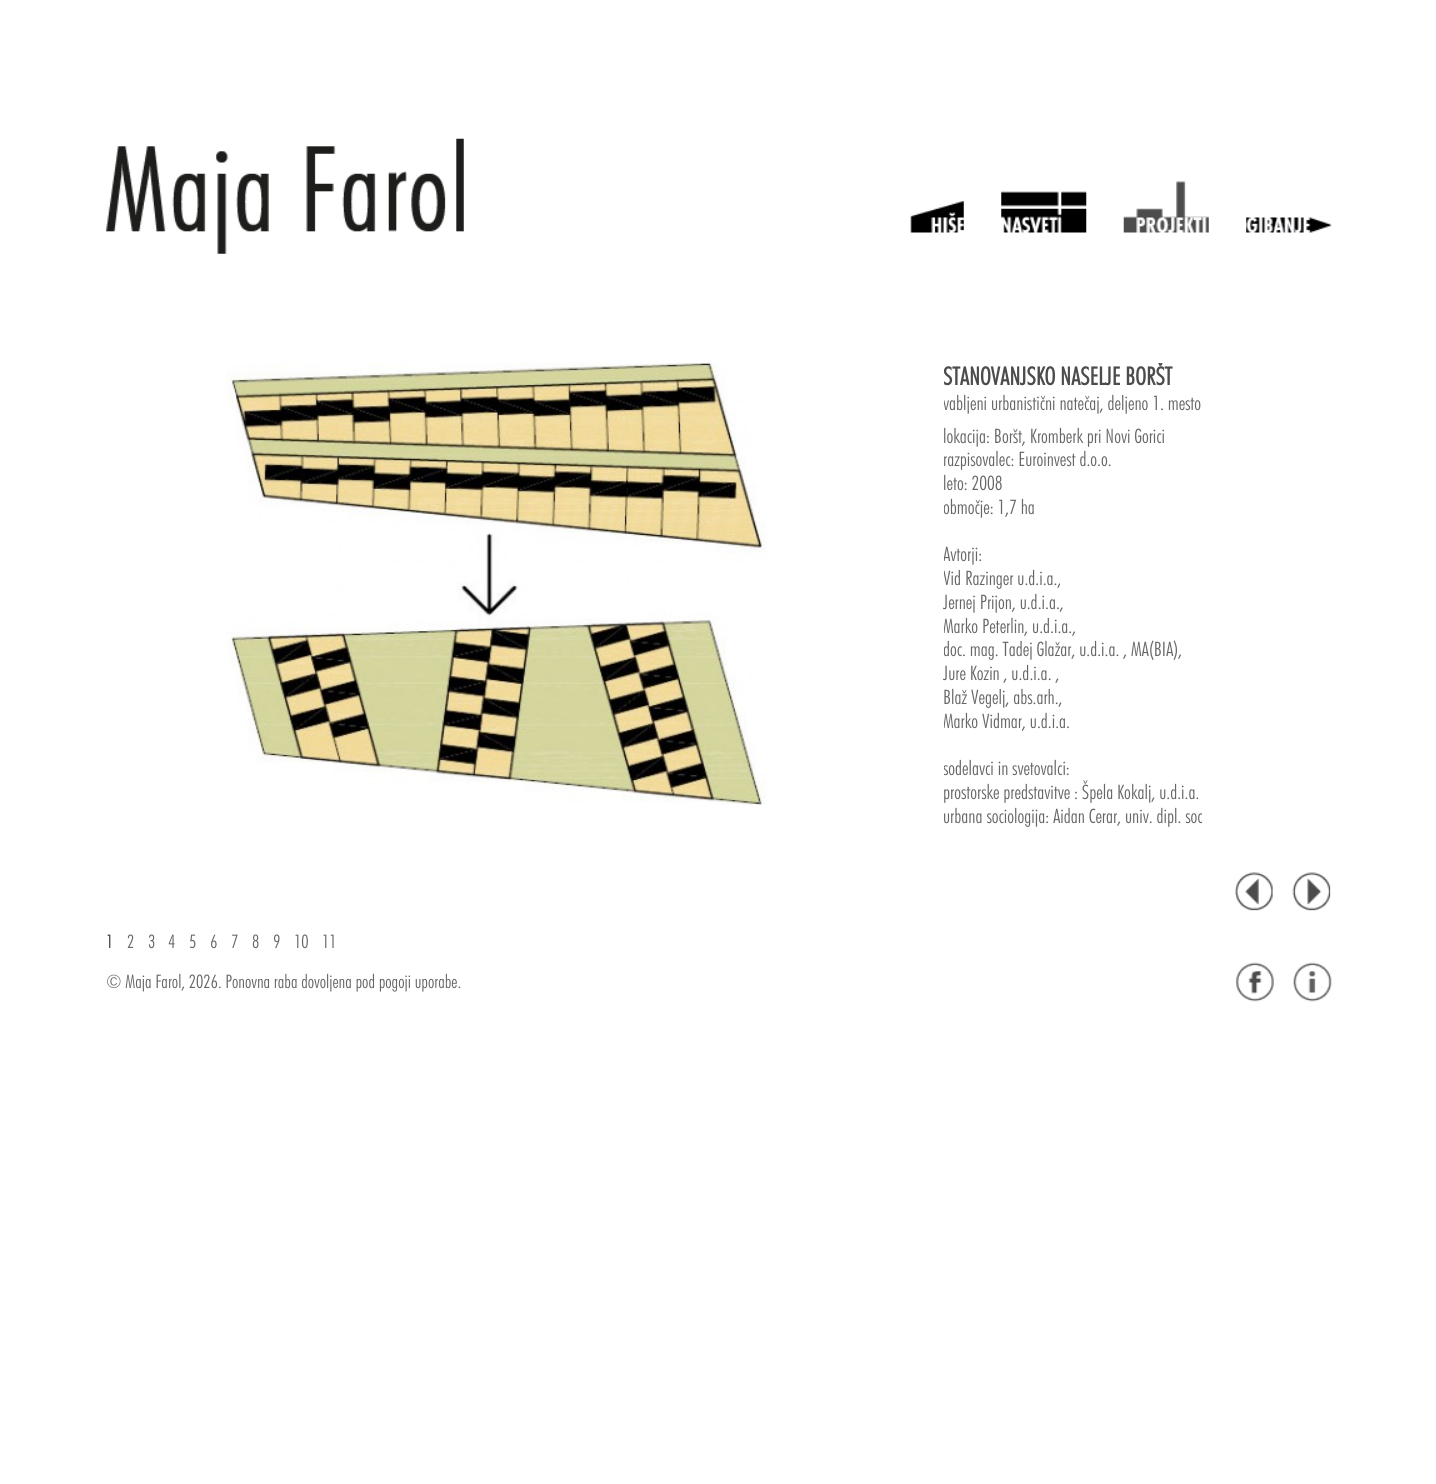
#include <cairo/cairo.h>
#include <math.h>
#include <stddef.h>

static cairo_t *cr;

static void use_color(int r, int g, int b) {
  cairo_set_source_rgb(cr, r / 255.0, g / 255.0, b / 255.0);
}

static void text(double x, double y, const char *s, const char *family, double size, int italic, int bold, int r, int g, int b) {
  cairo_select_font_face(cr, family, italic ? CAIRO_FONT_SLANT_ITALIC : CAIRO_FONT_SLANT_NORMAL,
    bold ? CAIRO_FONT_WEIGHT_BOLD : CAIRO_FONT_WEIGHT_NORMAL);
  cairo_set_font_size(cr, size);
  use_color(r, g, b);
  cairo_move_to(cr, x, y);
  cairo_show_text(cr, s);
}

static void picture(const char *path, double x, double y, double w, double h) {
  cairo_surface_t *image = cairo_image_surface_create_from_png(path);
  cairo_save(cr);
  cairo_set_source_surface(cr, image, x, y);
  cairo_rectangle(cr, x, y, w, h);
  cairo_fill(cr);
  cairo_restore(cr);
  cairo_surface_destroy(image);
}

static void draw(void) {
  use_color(255, 255, 255);
  cairo_paint(cr);
  picture("img_01.png", 106, 138, 358, 116);
  picture("img_02.png", 910, 201, 54, 32);
  picture("img_03.png", 1001, 191, 86, 42);
  picture("img_04.png", 1123, 181, 86, 52);
  picture("img_05.png", 1246, 217, 86, 16);
  picture("img_06.png", 226, 362, 541, 443);
  picture("img_07.png", 1235, 872, 38, 39);
  picture("img_08.png", 1292, 872, 39, 39);
  picture("img_09.png", 1236, 962, 38, 40);
  picture("img_10.png", 1293, 962, 39, 40);
  cairo_save(cr);
  cairo_rectangle(cr, 944, 363, 387, 62);
  cairo_clip(cr);
  text(943, 385, "STANOVANJSKO NASELJE BORŠT", "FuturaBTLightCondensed", 25, 0, 1, 76, 76, 76);
  text(943, 410, "vabljeni urbanistični natečaj, deljeno 1. mesto", "FuturaBTLightCondensed Light", 20, 0, 0, 102, 102, 102);
  cairo_restore(cr);
  text(943, 443, "lokacija: Boršt, Kromberk pri Novi Gorici", "FuturaBTLightCondensed Light", 20, 0, 0, 102, 102, 102);
  text(943, 466, "razpisovalec: Euroinvest d.o.o.", "FuturaBTLightCondensed Light", 20, 0, 0, 102, 102, 102);
  text(943, 490, "leto: 2008", "FuturaBTLightCondensed Light", 20, 0, 0, 102, 102, 102);
  cairo_save(cr);
  cairo_rectangle(cr, 944, 425, 387, 406);
  cairo_clip(cr);
  text(943, 514, "območje: 1,7 ha", "FuturaBTLightCondensed Light", 20, 0, 0, 102, 102, 102);
  text(943, 561, "Avtorji:", "FuturaBTLightCondensed Light", 20, 0, 0, 102, 102, 102);
  text(943, 585, "Vid Razinger u.d.i.a.,", "FuturaBTLightCondensed Light", 20, 0, 0, 102, 102, 102);
  cairo_restore(cr);
  text(943, 609, "Jernej Prijon, u.d.i.a.,", "FuturaBTLightCondensed Light", 20, 0, 0, 102, 102, 102);
  cairo_save(cr);
  cairo_rectangle(cr, 944, 425, 387, 406);
  cairo_clip(cr);
  text(943, 633, "Marko Peterlin, u.d.i.a.,", "FuturaBTLightCondensed Light", 20, 0, 0, 102, 102, 102);
  text(943, 656, "doc. mag. Tadej Glažar, u.d.i.a. , MA(BIA),", "FuturaBTLightCondensed Light", 20, 0, 0, 102, 102, 102);
  cairo_restore(cr);
  text(943, 680, "Jure Kozin , u.d.i.a. ,", "FuturaBTLightCondensed Light", 20, 0, 0, 102, 102, 102);
  text(943, 704, "Blaž Vegelj, abs.arh.,", "FuturaBTLightCondensed Light", 20, 0, 0, 102, 102, 102);
  cairo_save(cr);
  cairo_rectangle(cr, 944, 425, 387, 406);
  cairo_clip(cr);
  text(943, 728, "Marko Vidmar, u.d.i.a.", "FuturaBTLightCondensed Light", 20, 0, 0, 102, 102, 102);
  text(943, 775, "sodelavci in svetovalci:", "FuturaBTLightCondensed Light", 20, 0, 0, 102, 102, 102);
  cairo_restore(cr);
  text(943, 799, "prostorske predstavitve : Špela Kokalj, u.d.i.a.", "FuturaBTLightCondensed Light", 20, 0, 0, 102, 102, 102);
  text(943, 823, "urbana sociologija: Aidan Cerar, univ. dipl. soc", "FuturaBTLightCondensed Light", 20, 0, 0, 102, 102, 102);
  text(106, 948, "1", "FuturaBTLightCondensed Light", 18.75, 0, 0, 51, 51, 51);
  text(127, 948, "2", "FuturaBTLightCondensed Light", 18.75, 0, 0, 102, 102, 102);
  text(148, 948, "3", "FuturaBTLightCondensed Light", 18.75, 0, 0, 102, 102, 102);
  text(168, 948, "4", "FuturaBTLightCondensed Light", 18.75, 0, 0, 102, 102, 102);
  text(189, 948, "5", "FuturaBTLightCondensed Light", 18.75, 0, 0, 102, 102, 102);
  text(210, 948, "6", "FuturaBTLightCondensed Light", 18.75, 0, 0, 102, 102, 102);
  text(231, 948, "7", "FuturaBTLightCondensed Light", 18.75, 0, 0, 102, 102, 102);
  text(252, 948, "8", "FuturaBTLightCondensed Light", 18.75, 0, 0, 102, 102, 102);
  text(273, 948, "9", "FuturaBTLightCondensed Light", 18.75, 0, 0, 102, 102, 102);
  text(294, 948, "10", "FuturaBTLightCondensed Light", 18.75, 0, 0, 102, 102, 102);
  text(322, 948, "11", "FuturaBTLightCondensed Light", 18.75, 0, 0, 102, 102, 102);
  text(106, 988, "© Maja Farol, 2026. Ponovna raba dovoljena pod pogoji uporabe.", "FuturaBTLightCondensed Light", 18.75, 0, 0, 102, 102, 102);
}

int main(void) {
  cairo_surface_t *surface = cairo_image_surface_create(CAIRO_FORMAT_RGB24, 1436, 1484);
  cr = cairo_create(surface);
  cairo_font_options_t *options = cairo_font_options_create();
  cairo_font_options_set_hint_metrics(options, CAIRO_HINT_METRICS_OFF);
  cairo_font_options_set_hint_style(options, CAIRO_HINT_STYLE_NONE);
  cairo_set_font_options(cr, options);
  cairo_set_miter_limit(cr, 4);
  draw();
  cairo_surface_write_to_png(surface, "out.png");
  cairo_font_options_destroy(options);
  cairo_destroy(cr);
  cairo_surface_destroy(surface);
  return 0;
}
